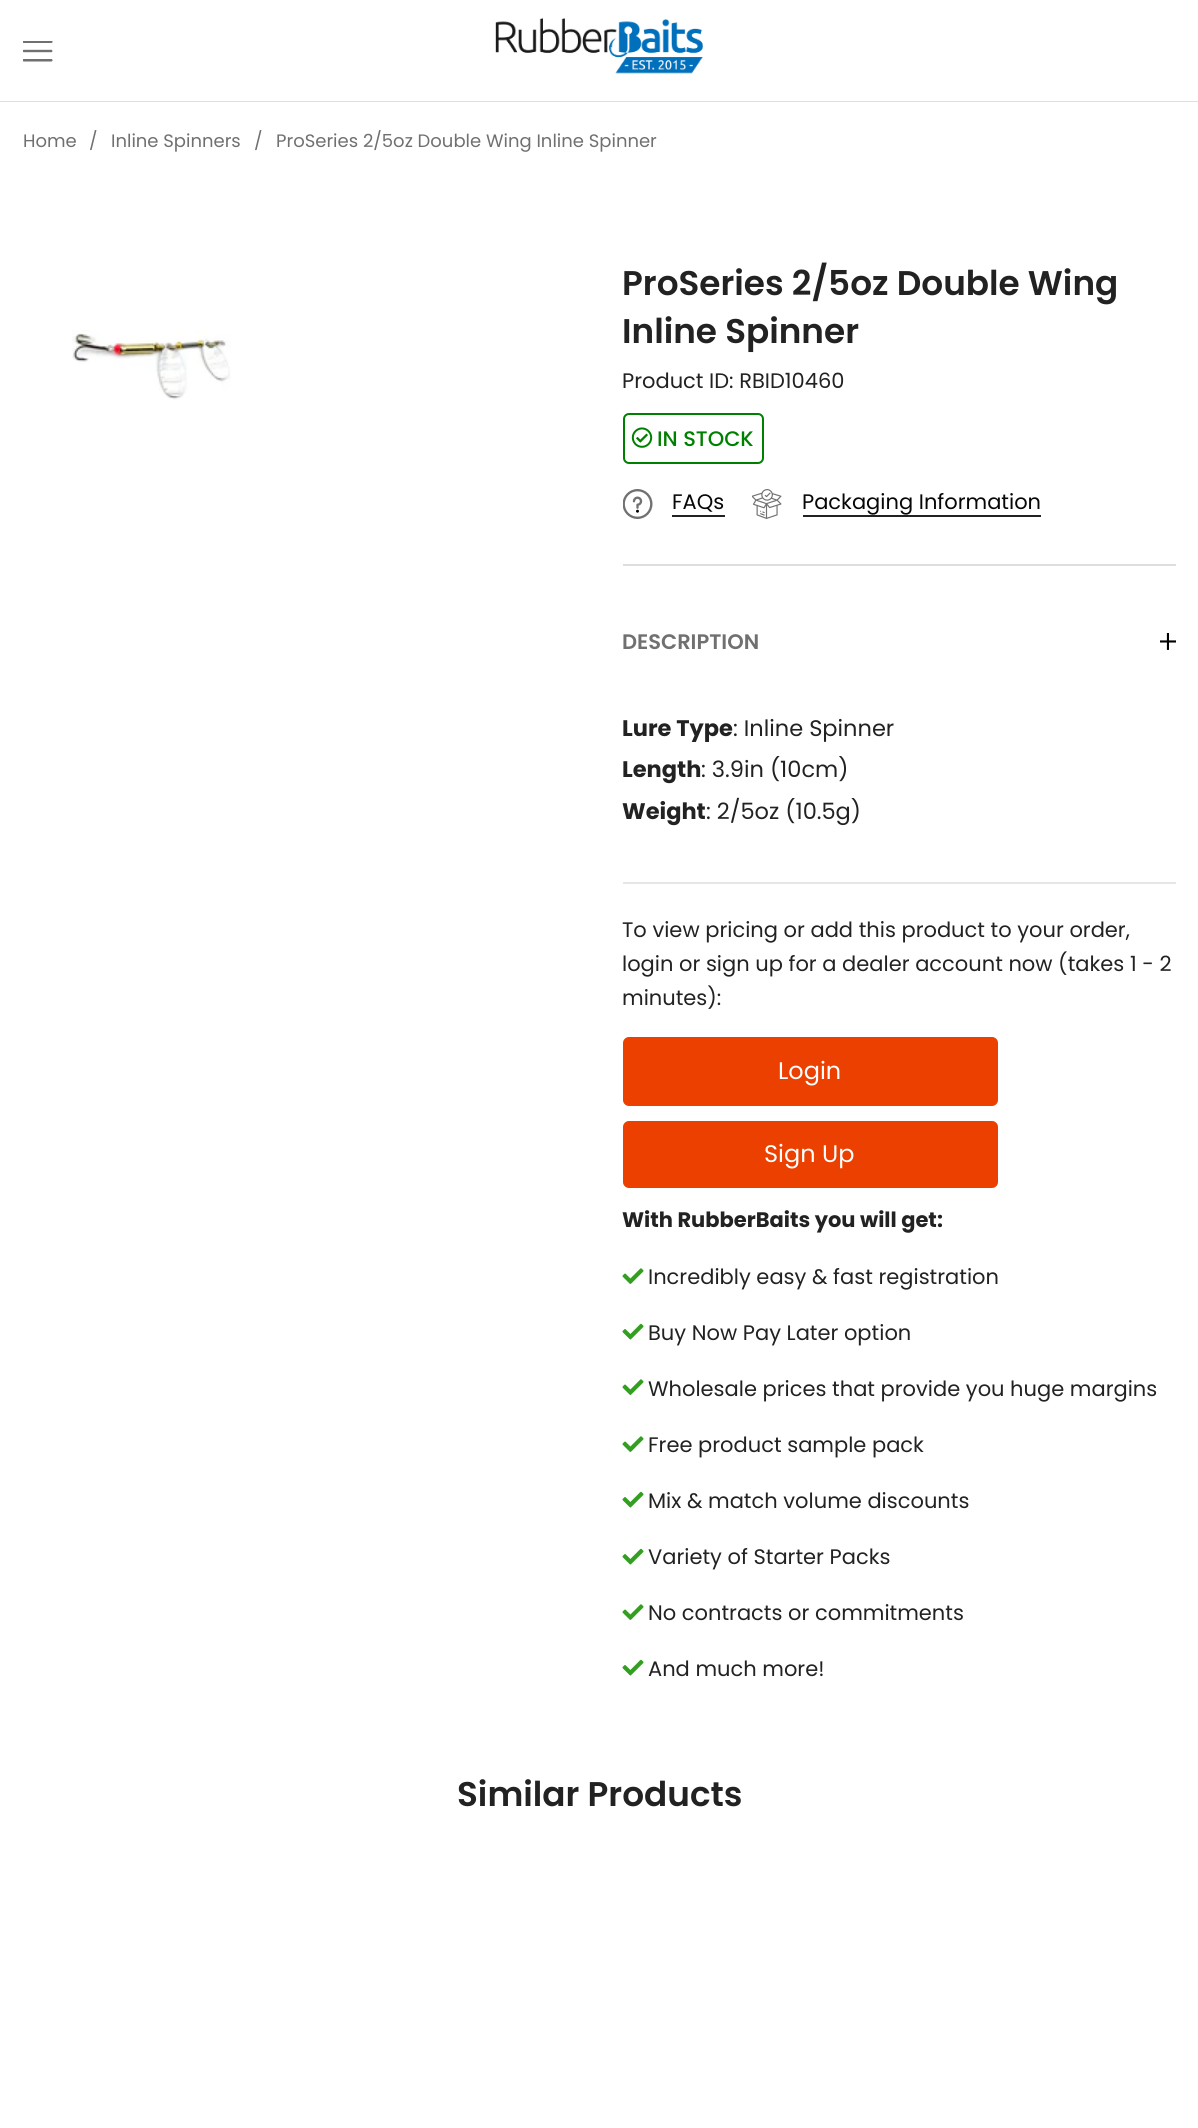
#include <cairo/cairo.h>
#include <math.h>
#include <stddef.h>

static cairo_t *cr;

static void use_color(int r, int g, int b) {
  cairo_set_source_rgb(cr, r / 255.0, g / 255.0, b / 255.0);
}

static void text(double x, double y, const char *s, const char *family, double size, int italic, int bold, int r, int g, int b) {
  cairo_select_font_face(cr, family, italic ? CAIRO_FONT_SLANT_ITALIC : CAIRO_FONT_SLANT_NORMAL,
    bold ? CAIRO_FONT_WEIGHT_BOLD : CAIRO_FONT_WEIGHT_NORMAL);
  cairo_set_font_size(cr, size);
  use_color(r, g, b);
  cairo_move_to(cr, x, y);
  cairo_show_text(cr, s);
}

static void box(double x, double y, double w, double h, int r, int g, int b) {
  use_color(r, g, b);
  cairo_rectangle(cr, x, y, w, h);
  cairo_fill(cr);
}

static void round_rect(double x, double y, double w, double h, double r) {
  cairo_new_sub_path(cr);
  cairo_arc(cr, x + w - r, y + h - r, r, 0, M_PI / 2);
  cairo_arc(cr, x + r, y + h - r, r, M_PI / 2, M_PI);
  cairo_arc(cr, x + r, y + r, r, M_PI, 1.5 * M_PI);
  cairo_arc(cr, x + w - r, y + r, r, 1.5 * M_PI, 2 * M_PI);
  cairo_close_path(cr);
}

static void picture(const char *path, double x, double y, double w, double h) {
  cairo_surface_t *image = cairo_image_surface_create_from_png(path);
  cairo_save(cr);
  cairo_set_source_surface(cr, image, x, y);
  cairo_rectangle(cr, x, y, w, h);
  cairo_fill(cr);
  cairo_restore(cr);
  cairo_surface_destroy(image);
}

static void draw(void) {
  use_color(255, 255, 255);
  cairo_paint(cr);
  box(0, 101, 1198, 1, 222, 222, 222);
  picture("img_01.png", 23, 41, 30, 21);
  picture("img_02.png", 495, 18, 208, 56);
  picture("img_03.png", 72, 330, 159, 70);
  round_rect(624, 414, 139, 49, 5);
  use_color(0, 128, 0);
  cairo_stroke(cr);
  picture("img_04.png", 631, 427, 22, 21);
  box(623, 564, 553, 2, 222, 222, 222);
  picture("img_05.png", 623, 489, 30, 30);
  box(672, 515, 53, 2, 34, 34, 34);
  picture("img_06.png", 752, 489, 30, 30);
  box(803, 515, 238, 2, 34, 34, 34);
  box(623, 882, 553, 2, 230, 230, 230);
  picture("img_07.png", 1160, 633, 16, 17);
  use_color(235, 64, 0);
  round_rect(623, 1037, 375, 69, 6);
  cairo_fill(cr);
  round_rect(623, 1121, 375, 67, 6);
  cairo_fill(cr);
  picture("img_08.png", 622, 1268, 22, 16);
  picture("img_09.png", 622, 1323, 22, 17);
  picture("img_08.png", 622, 1379, 22, 16);
  picture("img_08.png", 622, 1436, 22, 16);
  picture("img_09.png", 622, 1491, 22, 17);
  picture("img_09.png", 622, 1548, 22, 17);
  picture("img_08.png", 622, 1604, 22, 16);
  picture("img_09.png", 622, 1659, 22, 17);
  text(23, 147, "Home", "Poppins", 18, 0, 0, 112, 112, 112);
  text(89, 147, "/", "Poppins", 18, 0, 0, 112, 112, 112);
  text(111, 147, "Inline Spinners", "Poppins", 18, 0, 0, 112, 112, 112);
  text(254, 147, "/", "Poppins", 18, 0, 0, 112, 112, 112);
  text(276, 147, "ProSeries 2/5oz Double Wing Inline Spinner", "Poppins", 18, 0, 0, 112, 112, 112);
  text(622, 295, "ProSeries 2/5oz Double Wing", "Poppins SemiBold", 34.25, 0, 0, 34, 34, 34);
  text(622, 343, "Inline Spinner", "Poppins SemiBold", 34.25, 0, 0, 34, 34, 34);
  text(622, 388, "Product ID: RBID10460", "Poppins", 21, 0, 0, 34, 34, 34);
  text(657, 446, "IN STOCK", "Poppins Medium", 21, 0, 0, 0, 128, 0);
  text(672, 509, "FAQs", "Poppins", 21, 0, 0, 7, 7, 7);
  text(802, 509, "Packaging Information", "Poppins", 21, 0, 0, 7, 7, 7);
  text(622, 649, "DESCRIPTION", "Poppins SemiBold", 21, 0, 0, 112, 112, 112);
  text(622, 736, "Lure Type", "Poppins", 22.5, 0, 1, 34, 34, 34);
  text(733, 736, ": Inline Spinner", "Poppins", 22.5, 0, 0, 34, 34, 34);
  text(622, 777, "Length", "Poppins", 22.5, 0, 1, 34, 34, 34);
  text(701, 777, ": 3.9in (10cm)", "Poppins", 22.5, 0, 0, 34, 34, 34);
  text(622, 819, "Weight", "Poppins", 22.5, 0, 1, 34, 34, 34);
  text(706, 819, ": 2/5oz (10.5g)", "Poppins", 22.5, 0, 0, 34, 34, 34);
  text(622, 937, "To view pricing or add this product to your order,", "Poppins", 21, 0, 0, 34, 34, 34);
  text(622, 971, "login or sign up for a dealer account now (takes 1 - 2", "Poppins", 21, 0, 0, 34, 34, 34);
  text(622, 1005, "minutes):", "Poppins", 21, 0, 0, 34, 34, 34);
  text(778, 1079, "Login", "Poppins", 24, 0, 0, 255, 255, 255);
  text(764, 1162, "Sign Up", "Poppins", 24, 0, 0, 255, 255, 255);
  text(622, 1227, "With RubberBaits you will get:", "Poppins", 21, 0, 1, 34, 34, 34);
  text(648, 1284, "Incredibly easy & fast registration", "Poppins", 21, 0, 0, 34, 34, 34);
  text(648, 1340, "Buy Now Pay Later option", "Poppins", 21, 0, 0, 34, 34, 34);
  text(648, 1396, "Wholesale prices that provide you huge margins", "Poppins", 21, 0, 0, 34, 34, 34);
  text(648, 1452, "Free product sample pack", "Poppins", 21, 0, 0, 34, 34, 34);
  text(648, 1508, "Mix & match volume discounts", "Poppins", 21, 0, 0, 34, 34, 34);
  text(648, 1564, "Variety of Starter Packs", "Poppins", 21, 0, 0, 34, 34, 34);
  text(648, 1620, "No contracts or commitments", "Poppins", 21, 0, 0, 34, 34, 34);
  text(648, 1676, "And much more!", "Poppins", 21, 0, 0, 34, 34, 34);
  text(457, 1806, "Similar Products", "Poppins SemiBold", 34.25, 0, 0, 34, 34, 34);
}

int main(void) {
  cairo_surface_t *surface = cairo_image_surface_create(CAIRO_FORMAT_RGB24, 1198, 2128);
  cr = cairo_create(surface);
  cairo_font_options_t *options = cairo_font_options_create();
  cairo_font_options_set_hint_metrics(options, CAIRO_HINT_METRICS_OFF);
  cairo_font_options_set_hint_style(options, CAIRO_HINT_STYLE_NONE);
  cairo_set_font_options(cr, options);
  cairo_set_miter_limit(cr, 4);
  draw();
  cairo_surface_write_to_png(surface, "out.png");
  cairo_font_options_destroy(options);
  cairo_destroy(cr);
  cairo_surface_destroy(surface);
  return 0;
}
